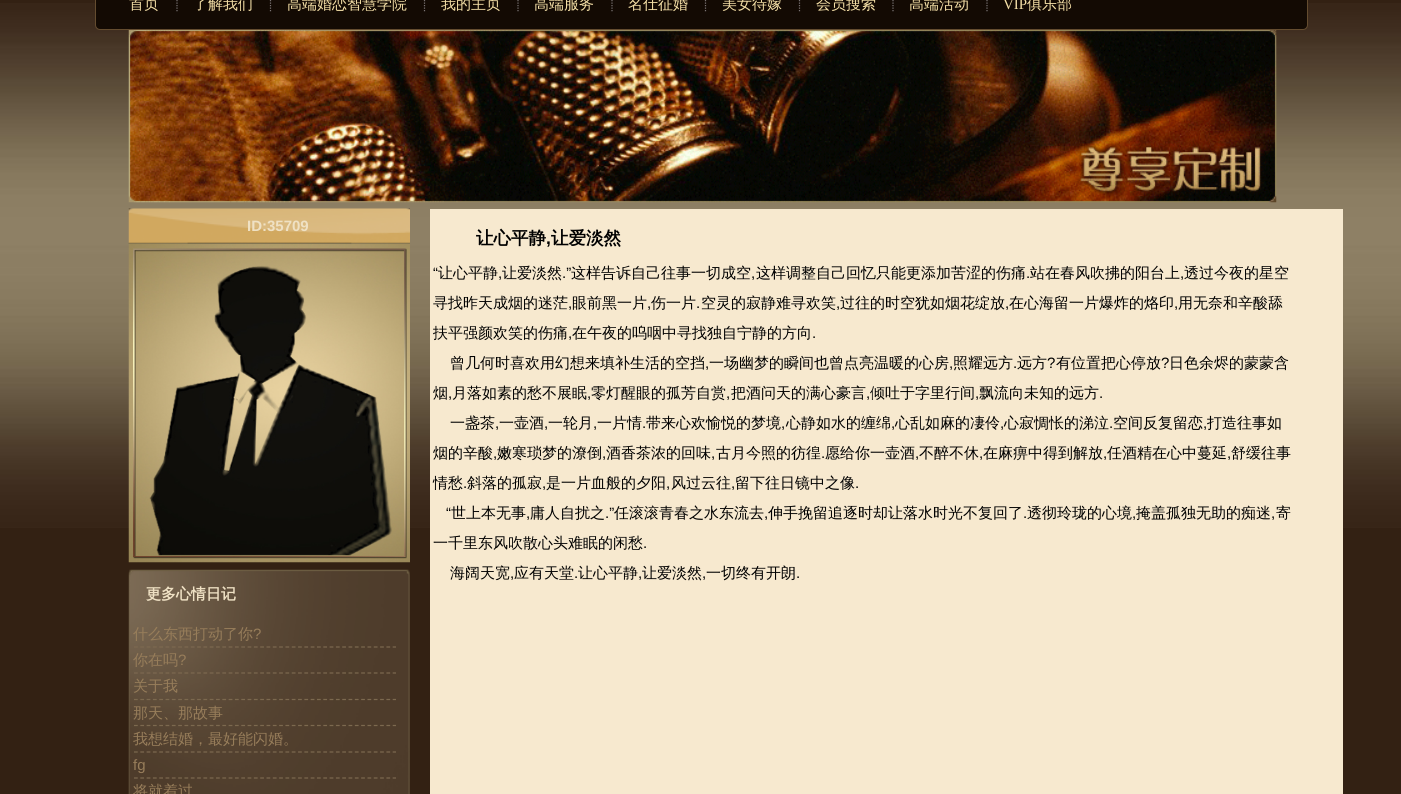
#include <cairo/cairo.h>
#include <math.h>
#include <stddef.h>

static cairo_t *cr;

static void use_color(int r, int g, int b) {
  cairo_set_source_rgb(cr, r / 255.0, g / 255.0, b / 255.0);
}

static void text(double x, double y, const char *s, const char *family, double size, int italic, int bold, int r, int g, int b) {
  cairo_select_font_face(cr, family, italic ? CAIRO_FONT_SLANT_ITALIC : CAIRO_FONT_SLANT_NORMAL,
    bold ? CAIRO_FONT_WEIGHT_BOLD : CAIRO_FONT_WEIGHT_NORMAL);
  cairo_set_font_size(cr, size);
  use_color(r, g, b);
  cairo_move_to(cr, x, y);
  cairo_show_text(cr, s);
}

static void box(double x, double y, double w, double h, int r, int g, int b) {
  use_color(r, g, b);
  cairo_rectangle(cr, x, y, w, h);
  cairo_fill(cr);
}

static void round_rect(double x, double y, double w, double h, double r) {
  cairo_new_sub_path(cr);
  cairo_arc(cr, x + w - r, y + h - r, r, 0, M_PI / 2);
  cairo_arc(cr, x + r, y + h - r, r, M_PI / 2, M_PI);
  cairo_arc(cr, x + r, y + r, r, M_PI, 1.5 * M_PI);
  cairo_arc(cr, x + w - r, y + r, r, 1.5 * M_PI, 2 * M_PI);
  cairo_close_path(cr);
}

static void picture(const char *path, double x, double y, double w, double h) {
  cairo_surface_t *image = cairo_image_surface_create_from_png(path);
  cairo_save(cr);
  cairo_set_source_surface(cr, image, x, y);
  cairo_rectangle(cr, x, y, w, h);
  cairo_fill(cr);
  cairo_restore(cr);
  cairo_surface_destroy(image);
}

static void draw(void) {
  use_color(51, 33, 19);
  cairo_paint(cr);
  picture("img_01.png", 0, 3, 1401, 525);
  use_color(19, 10, 3);
  round_rect(95.5, -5.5, 1212, 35, 4.5);
  cairo_fill_preserve(cr);
  use_color(100, 76, 47);
  cairo_set_line_width(cr, 1);
  cairo_stroke(cr);
  cairo_new_path(cr);
  cairo_move_to(cr, 177, -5);
  cairo_line_to(cr, 177, 12.5);
  use_color(123, 117, 117);
  cairo_set_line_width(cr, 1.2);
  cairo_set_dash(cr, (double[]){1.25, 1.25}, 2, 0);
  cairo_stroke(cr);
  cairo_new_path(cr);
  cairo_move_to(cr, 270.5, -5);
  cairo_line_to(cr, 270.5, 12.5);
  cairo_stroke(cr);
  cairo_new_path(cr);
  cairo_move_to(cr, 424.5, -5);
  cairo_line_to(cr, 424.5, 12.5);
  cairo_stroke(cr);
  cairo_new_path(cr);
  cairo_move_to(cr, 518, -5);
  cairo_line_to(cr, 518, 12.5);
  cairo_stroke(cr);
  cairo_new_path(cr);
  cairo_move_to(cr, 612, -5);
  cairo_line_to(cr, 612, 12.5);
  cairo_stroke(cr);
  cairo_new_path(cr);
  cairo_move_to(cr, 705.5, -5);
  cairo_line_to(cr, 705.5, 12.5);
  cairo_stroke(cr);
  cairo_new_path(cr);
  cairo_move_to(cr, 799.5, -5);
  cairo_line_to(cr, 799.5, 12.5);
  cairo_stroke(cr);
  cairo_new_path(cr);
  cairo_move_to(cr, 893, -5);
  cairo_line_to(cr, 893, 12.5);
  cairo_stroke(cr);
  cairo_new_path(cr);
  cairo_move_to(cr, 987, -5);
  cairo_line_to(cr, 987, 12.5);
  cairo_stroke(cr);
  picture("img_02.png", 128, 30, 1149, 173);
  picture("img_03.png", 128, 208, 282, 36);
  picture("img_04.png", 128, 243, 282, 320);
  picture("img_05.png", 128, 569, 282, 225);
  cairo_new_path(cr);
  cairo_move_to(cr, 134, 647);
  cairo_line_to(cr, 396, 647);
  use_color(124, 105, 79);
  cairo_set_dash(cr, (double[]){3.75, 2.56}, 2, 0);
  cairo_stroke(cr);
  cairo_new_path(cr);
  cairo_move_to(cr, 134, 673);
  cairo_line_to(cr, 396, 673);
  cairo_stroke(cr);
  cairo_new_path(cr);
  cairo_move_to(cr, 134, 699.5);
  cairo_line_to(cr, 396, 699.5);
  cairo_stroke(cr);
  cairo_new_path(cr);
  cairo_move_to(cr, 134, 725.5);
  cairo_line_to(cr, 396, 725.5);
  cairo_stroke(cr);
  cairo_new_path(cr);
  cairo_move_to(cr, 134, 752);
  cairo_line_to(cr, 396, 752);
  cairo_stroke(cr);
  cairo_new_path(cr);
  cairo_move_to(cr, 134, 778);
  cairo_line_to(cr, 396, 778);
  cairo_stroke(cr);
  box(430, 209, 913, 585, 247, 233, 207);
  text(129, 9, "首页", "WenQuanYi Zen Hei Medium", 15, 0, 0, 244, 223, 166);
  text(193, 9, "了解我们", "WenQuanYi Zen Hei Medium", 15, 0, 0, 244, 223, 166);
  text(287, 9, "高端婚恋智慧学院", "WenQuanYi Zen Hei Medium", 15, 0, 0, 244, 223, 166);
  text(441, 9, "我的主页", "WenQuanYi Zen Hei Medium", 15, 0, 0, 244, 223, 166);
  text(534, 9, "高端服务", "WenQuanYi Zen Hei Medium", 15, 0, 0, 244, 223, 166);
  text(628, 9, "名仕征婚", "WenQuanYi Zen Hei Medium", 15, 0, 0, 244, 223, 166);
  text(722, 9, "美女待嫁", "WenQuanYi Zen Hei Medium", 15, 0, 0, 244, 223, 166);
  text(816, 9, "会员搜索", "WenQuanYi Zen Hei Medium", 15, 0, 0, 244, 223, 166);
  text(909, 9, "高端活动", "WenQuanYi Zen Hei Medium", 15, 0, 0, 244, 223, 166);
  text(1003, 9, "VIP", "Liberation Serif", 15, 0, 0, 244, 223, 166);
  text(1027, 9, "俱乐部", "WenQuanYi Zen Hei Medium", 15, 0, 0, 244, 223, 166);
  text(247, 231, "ID:35709", "Liberation Sans", 15, 0, 1, 239, 225, 196);
  text(146, 599, "更多心情日记", "WenQuanYi Zen Hei", 15, 0, 1, 239, 225, 196);
  text(133, 639, "什么东西打动了你", "WenQuanYi Zen Hei Medium", 15, 0, 0, 151, 125, 90);
  text(253, 639, "?", "Liberation Sans", 15, 0, 0, 151, 125, 90);
  text(133, 665, "你在吗", "WenQuanYi Zen Hei Medium", 15, 0, 0, 151, 125, 90);
  text(178, 665, "?", "Liberation Sans", 15, 0, 0, 151, 125, 90);
  text(133, 691, "关于我", "WenQuanYi Zen Hei Medium", 15, 0, 0, 151, 125, 90);
  text(133, 718, "那天、那故事", "WenQuanYi Zen Hei Medium", 15, 0, 0, 151, 125, 90);
  text(133, 744, "我想结婚，最好能闪婚。", "WenQuanYi Zen Hei Medium", 15, 0, 0, 151, 125, 90);
  text(133, 770, "fg", "Liberation Sans", 15, 0, 0, 151, 125, 90);
  text(133, 796, "将就着过", "WenQuanYi Zen Hei Medium", 15, 0, 0, 151, 125, 90);
  text(476, 244, "让心平静", "WenQuanYi Zen Hei", 17.5, 0, 1, 0, 0, 0);
  text(546, 244, ",", "Liberation Sans", 17.5, 0, 1, 0, 0, 0);
  text(551, 244, "让爱淡然", "WenQuanYi Zen Hei", 17.5, 0, 1, 0, 0, 0);
  text(433, 278, "“", "Liberation Sans", 15, 0, 0, 0, 0, 0);
  text(438, 278, "让心平静", "WenQuanYi Zen Hei Medium", 15, 0, 0, 0, 0, 0);
  text(498, 278, ",", "Liberation Sans", 15, 0, 0, 0, 0, 0);
  text(502, 278, "让爱淡然", "WenQuanYi Zen Hei Medium", 15, 0, 0, 0, 0, 0);
  text(562, 278, ".”", "Liberation Sans", 15, 0, 0, 0, 0, 0);
  text(571, 278, "这样告诉自己往事一切成空", "WenQuanYi Zen Hei Medium", 15, 0, 0, 0, 0, 0);
  text(751, 278, ",", "Liberation Sans", 15, 0, 0, 0, 0, 0);
  text(756, 278, "这样调整自己回忆只能更添加苦涩的伤痛", "WenQuanYi Zen Hei Medium", 15, 0, 0, 0, 0, 0);
  text(1026, 278, ".", "Liberation Sans", 15, 0, 0, 0, 0, 0);
  text(1030, 278, "站在春风吹拂的阳台上", "WenQuanYi Zen Hei Medium", 15, 0, 0, 0, 0, 0);
  text(1180, 278, ",", "Liberation Sans", 15, 0, 0, 0, 0, 0);
  text(1184, 278, "透过今夜的星空", "WenQuanYi Zen Hei Medium", 15, 0, 0, 0, 0, 0);
  text(433, 308, "寻找昨天成烟的迷茫", "WenQuanYi Zen Hei Medium", 15, 0, 0, 0, 0, 0);
  text(568, 308, ",", "Liberation Sans", 15, 0, 0, 0, 0, 0);
  text(572, 308, "眼前黑一片", "WenQuanYi Zen Hei Medium", 15, 0, 0, 0, 0, 0);
  text(647, 308, ",", "Liberation Sans", 15, 0, 0, 0, 0, 0);
  text(651, 308, "伤一片", "WenQuanYi Zen Hei Medium", 15, 0, 0, 0, 0, 0);
  text(696, 308, ".", "Liberation Sans", 15, 0, 0, 0, 0, 0);
  text(701, 308, "空灵的寂静难寻欢笑", "WenQuanYi Zen Hei Medium", 15, 0, 0, 0, 0, 0);
  text(836, 308, ",", "Liberation Sans", 15, 0, 0, 0, 0, 0);
  text(840, 308, "过往的时空犹如烟花绽放", "WenQuanYi Zen Hei Medium", 15, 0, 0, 0, 0, 0);
  text(1005, 308, ",", "Liberation Sans", 15, 0, 0, 0, 0, 0);
  text(1009, 308, "在心海留一片爆炸的烙印", "WenQuanYi Zen Hei Medium", 15, 0, 0, 0, 0, 0);
  text(1174, 308, ",", "Liberation Sans", 15, 0, 0, 0, 0, 0);
  text(1178, 308, "用无奈和辛酸舔", "WenQuanYi Zen Hei Medium", 15, 0, 0, 0, 0, 0);
  text(433, 338, "扶平强颜欢笑的伤痛", "WenQuanYi Zen Hei Medium", 15, 0, 0, 0, 0, 0);
  text(568, 338, ",", "Liberation Sans", 15, 0, 0, 0, 0, 0);
  text(572, 338, "在午夜的呜咽中寻找独自宁静的方向", "WenQuanYi Zen Hei Medium", 15, 0, 0, 0, 0, 0);
  text(812, 338, ".", "Liberation Sans", 15, 0, 0, 0, 0, 0);
  text(450, 368, "曾几何时喜欢用幻想来填补生活的空挡", "WenQuanYi Zen Hei Medium", 15, 0, 0, 0, 0, 0);
  text(705, 368, ",", "Liberation Sans", 15, 0, 0, 0, 0, 0);
  text(709, 368, "一场幽梦的瞬间也曾点亮温暖的心房", "WenQuanYi Zen Hei Medium", 15, 0, 0, 0, 0, 0);
  text(949, 368, ",", "Liberation Sans", 15, 0, 0, 0, 0, 0);
  text(953, 368, "照耀远方", "WenQuanYi Zen Hei Medium", 15, 0, 0, 0, 0, 0);
  text(1013, 368, ".", "Liberation Sans", 15, 0, 0, 0, 0, 0);
  text(1017, 368, "远方", "WenQuanYi Zen Hei Medium", 15, 0, 0, 0, 0, 0);
  text(1047, 368, "?", "Liberation Sans", 15, 0, 0, 0, 0, 0);
  text(1056, 368, "有位置把心停放", "WenQuanYi Zen Hei Medium", 15, 0, 0, 0, 0, 0);
  text(1161, 368, "?", "Liberation Sans", 15, 0, 0, 0, 0, 0);
  text(1169, 368, "日色余烬的蒙蒙含", "WenQuanYi Zen Hei Medium", 15, 0, 0, 0, 0, 0);
  text(433, 398, "烟", "WenQuanYi Zen Hei Medium", 15, 0, 0, 0, 0, 0);
  text(448, 398, ",", "Liberation Sans", 15, 0, 0, 0, 0, 0);
  text(452, 398, "月落如素的愁不展眠", "WenQuanYi Zen Hei Medium", 15, 0, 0, 0, 0, 0);
  text(587, 398, ",", "Liberation Sans", 15, 0, 0, 0, 0, 0);
  text(591, 398, "零灯醒眼的孤芳自赏", "WenQuanYi Zen Hei Medium", 15, 0, 0, 0, 0, 0);
  text(726, 398, ",", "Liberation Sans", 15, 0, 0, 0, 0, 0);
  text(731, 398, "把酒问天的满心豪言", "WenQuanYi Zen Hei Medium", 15, 0, 0, 0, 0, 0);
  text(866, 398, ",", "Liberation Sans", 15, 0, 0, 0, 0, 0);
  text(870, 398, "倾吐于字里行间", "WenQuanYi Zen Hei Medium", 15, 0, 0, 0, 0, 0);
  text(975, 398, ",", "Liberation Sans", 15, 0, 0, 0, 0, 0);
  text(979, 398, "飘流向未知的远方", "WenQuanYi Zen Hei Medium", 15, 0, 0, 0, 0, 0);
  text(1099, 398, ".", "Liberation Sans", 15, 0, 0, 0, 0, 0);
  text(450, 428, "一盏茶", "WenQuanYi Zen Hei Medium", 15, 0, 0, 0, 0, 0);
  text(495, 428, ",", "Liberation Sans", 15, 0, 0, 0, 0, 0);
  text(499, 428, "一壶酒", "WenQuanYi Zen Hei Medium", 15, 0, 0, 0, 0, 0);
  text(544, 428, ",", "Liberation Sans", 15, 0, 0, 0, 0, 0);
  text(548, 428, "一轮月", "WenQuanYi Zen Hei Medium", 15, 0, 0, 0, 0, 0);
  text(593, 428, ",", "Liberation Sans", 15, 0, 0, 0, 0, 0);
  text(597, 428, "一片情", "WenQuanYi Zen Hei Medium", 15, 0, 0, 0, 0, 0);
  text(642, 428, ".", "Liberation Sans", 15, 0, 0, 0, 0, 0);
  text(646, 428, "带来心欢愉悦的梦境", "WenQuanYi Zen Hei Medium", 15, 0, 0, 0, 0, 0);
  text(781, 428, ",", "Liberation Sans", 15, 0, 0, 0, 0, 0);
  text(786, 428, "心静如水的缠绵", "WenQuanYi Zen Hei Medium", 15, 0, 0, 0, 0, 0);
  text(891, 428, ",", "Liberation Sans", 15, 0, 0, 0, 0, 0);
  text(895, 428, "心乱如麻的凄伶", "WenQuanYi Zen Hei Medium", 15, 0, 0, 0, 0, 0);
  text(1000, 428, ",", "Liberation Sans", 15, 0, 0, 0, 0, 0);
  text(1004, 428, "心寂惆怅的涕泣", "WenQuanYi Zen Hei Medium", 15, 0, 0, 0, 0, 0);
  text(1109, 428, ".", "Liberation Sans", 15, 0, 0, 0, 0, 0);
  text(1113, 428, "空间反复留恋", "WenQuanYi Zen Hei Medium", 15, 0, 0, 0, 0, 0);
  text(1203, 428, ",", "Liberation Sans", 15, 0, 0, 0, 0, 0);
  text(1207, 428, "打造往事如", "WenQuanYi Zen Hei Medium", 15, 0, 0, 0, 0, 0);
  text(433, 458, "烟的辛酸", "WenQuanYi Zen Hei Medium", 15, 0, 0, 0, 0, 0);
  text(493, 458, ",", "Liberation Sans", 15, 0, 0, 0, 0, 0);
  text(497, 458, "嫩寒琐梦的潦倒", "WenQuanYi Zen Hei Medium", 15, 0, 0, 0, 0, 0);
  text(602, 458, ",", "Liberation Sans", 15, 0, 0, 0, 0, 0);
  text(606, 458, "酒香茶浓的回味", "WenQuanYi Zen Hei Medium", 15, 0, 0, 0, 0, 0);
  text(711, 458, ",", "Liberation Sans", 15, 0, 0, 0, 0, 0);
  text(716, 458, "古月今照的彷徨", "WenQuanYi Zen Hei Medium", 15, 0, 0, 0, 0, 0);
  text(821, 458, ".", "Liberation Sans", 15, 0, 0, 0, 0, 0);
  text(825, 458, "愿给你一壶酒", "WenQuanYi Zen Hei Medium", 15, 0, 0, 0, 0, 0);
  text(915, 458, ",", "Liberation Sans", 15, 0, 0, 0, 0, 0);
  text(919, 458, "不醉不休", "WenQuanYi Zen Hei Medium", 15, 0, 0, 0, 0, 0);
  text(979, 458, ",", "Liberation Sans", 15, 0, 0, 0, 0, 0);
  text(983, 458, "在麻痹中得到解放", "WenQuanYi Zen Hei Medium", 15, 0, 0, 0, 0, 0);
  text(1103, 458, ",", "Liberation Sans", 15, 0, 0, 0, 0, 0);
  text(1107, 458, "任酒精在心中蔓延", "WenQuanYi Zen Hei Medium", 15, 0, 0, 0, 0, 0);
  text(1227, 458, ",", "Liberation Sans", 15, 0, 0, 0, 0, 0);
  text(1231, 458, "舒缓往事", "WenQuanYi Zen Hei Medium", 15, 0, 0, 0, 0, 0);
  text(433, 488, "情愁", "WenQuanYi Zen Hei Medium", 15, 0, 0, 0, 0, 0);
  text(463, 488, ".", "Liberation Sans", 15, 0, 0, 0, 0, 0);
  text(467, 488, "斜落的孤寂", "WenQuanYi Zen Hei Medium", 15, 0, 0, 0, 0, 0);
  text(542, 488, ",", "Liberation Sans", 15, 0, 0, 0, 0, 0);
  text(546, 488, "是一片血般的夕阳", "WenQuanYi Zen Hei Medium", 15, 0, 0, 0, 0, 0);
  text(666, 488, ",", "Liberation Sans", 15, 0, 0, 0, 0, 0);
  text(671, 488, "风过云往", "WenQuanYi Zen Hei Medium", 15, 0, 0, 0, 0, 0);
  text(731, 488, ",", "Liberation Sans", 15, 0, 0, 0, 0, 0);
  text(735, 488, "留下往日镜中之像", "WenQuanYi Zen Hei Medium", 15, 0, 0, 0, 0, 0);
  text(855, 488, ".", "Liberation Sans", 15, 0, 0, 0, 0, 0);
  text(446, 518, "“", "Liberation Sans", 15, 0, 0, 0, 0, 0);
  text(451, 518, "世上本无事", "WenQuanYi Zen Hei Medium", 15, 0, 0, 0, 0, 0);
  text(526, 518, ",", "Liberation Sans", 15, 0, 0, 0, 0, 0);
  text(530, 518, "庸人自扰之", "WenQuanYi Zen Hei Medium", 15, 0, 0, 0, 0, 0);
  text(605, 518, ".”", "Liberation Sans", 15, 0, 0, 0, 0, 0);
  text(614, 518, "任滚滚青春之水东流去", "WenQuanYi Zen Hei Medium", 15, 0, 0, 0, 0, 0);
  text(764, 518, ",", "Liberation Sans", 15, 0, 0, 0, 0, 0);
  text(768, 518, "伸手挽留追逐时却让落水时光不复回了", "WenQuanYi Zen Hei Medium", 15, 0, 0, 0, 0, 0);
  text(1023, 518, ".", "Liberation Sans", 15, 0, 0, 0, 0, 0);
  text(1027, 518, "透彻玲珑的心境", "WenQuanYi Zen Hei Medium", 15, 0, 0, 0, 0, 0);
  text(1132, 518, ",", "Liberation Sans", 15, 0, 0, 0, 0, 0);
  text(1136, 518, "掩盖孤独无助的痴迷", "WenQuanYi Zen Hei Medium", 15, 0, 0, 0, 0, 0);
  text(1271, 518, ",", "Liberation Sans", 15, 0, 0, 0, 0, 0);
  text(1276, 518, "寄", "WenQuanYi Zen Hei Medium", 15, 0, 0, 0, 0, 0);
  text(433, 548, "一千里东风吹散心头难眠的闲愁", "WenQuanYi Zen Hei Medium", 15, 0, 0, 0, 0, 0);
  text(643, 548, ".", "Liberation Sans", 15, 0, 0, 0, 0, 0);
  text(450, 578, "海阔天宽", "WenQuanYi Zen Hei Medium", 15, 0, 0, 0, 0, 0);
  text(510, 578, ",", "Liberation Sans", 15, 0, 0, 0, 0, 0);
  text(514, 578, "应有天堂", "WenQuanYi Zen Hei Medium", 15, 0, 0, 0, 0, 0);
  text(574, 578, ".", "Liberation Sans", 15, 0, 0, 0, 0, 0);
  text(578, 578, "让心平静", "WenQuanYi Zen Hei Medium", 15, 0, 0, 0, 0, 0);
  text(638, 578, ",", "Liberation Sans", 15, 0, 0, 0, 0, 0);
  text(642, 578, "让爱淡然", "WenQuanYi Zen Hei Medium", 15, 0, 0, 0, 0, 0);
  text(702, 578, ",", "Liberation Sans", 15, 0, 0, 0, 0, 0);
  text(706, 578, "一切终有开朗", "WenQuanYi Zen Hei Medium", 15, 0, 0, 0, 0, 0);
  text(796, 578, ".", "Liberation Sans", 15, 0, 0, 0, 0, 0);
}

int main(void) {
  cairo_surface_t *surface = cairo_image_surface_create(CAIRO_FORMAT_RGB24, 1401, 794);
  cr = cairo_create(surface);
  cairo_font_options_t *options = cairo_font_options_create();
  cairo_font_options_set_hint_metrics(options, CAIRO_HINT_METRICS_OFF);
  cairo_font_options_set_hint_style(options, CAIRO_HINT_STYLE_NONE);
  cairo_set_font_options(cr, options);
  cairo_set_miter_limit(cr, 4);
  draw();
  cairo_surface_write_to_png(surface, "out.png");
  cairo_font_options_destroy(options);
  cairo_destroy(cr);
  cairo_surface_destroy(surface);
  return 0;
}
